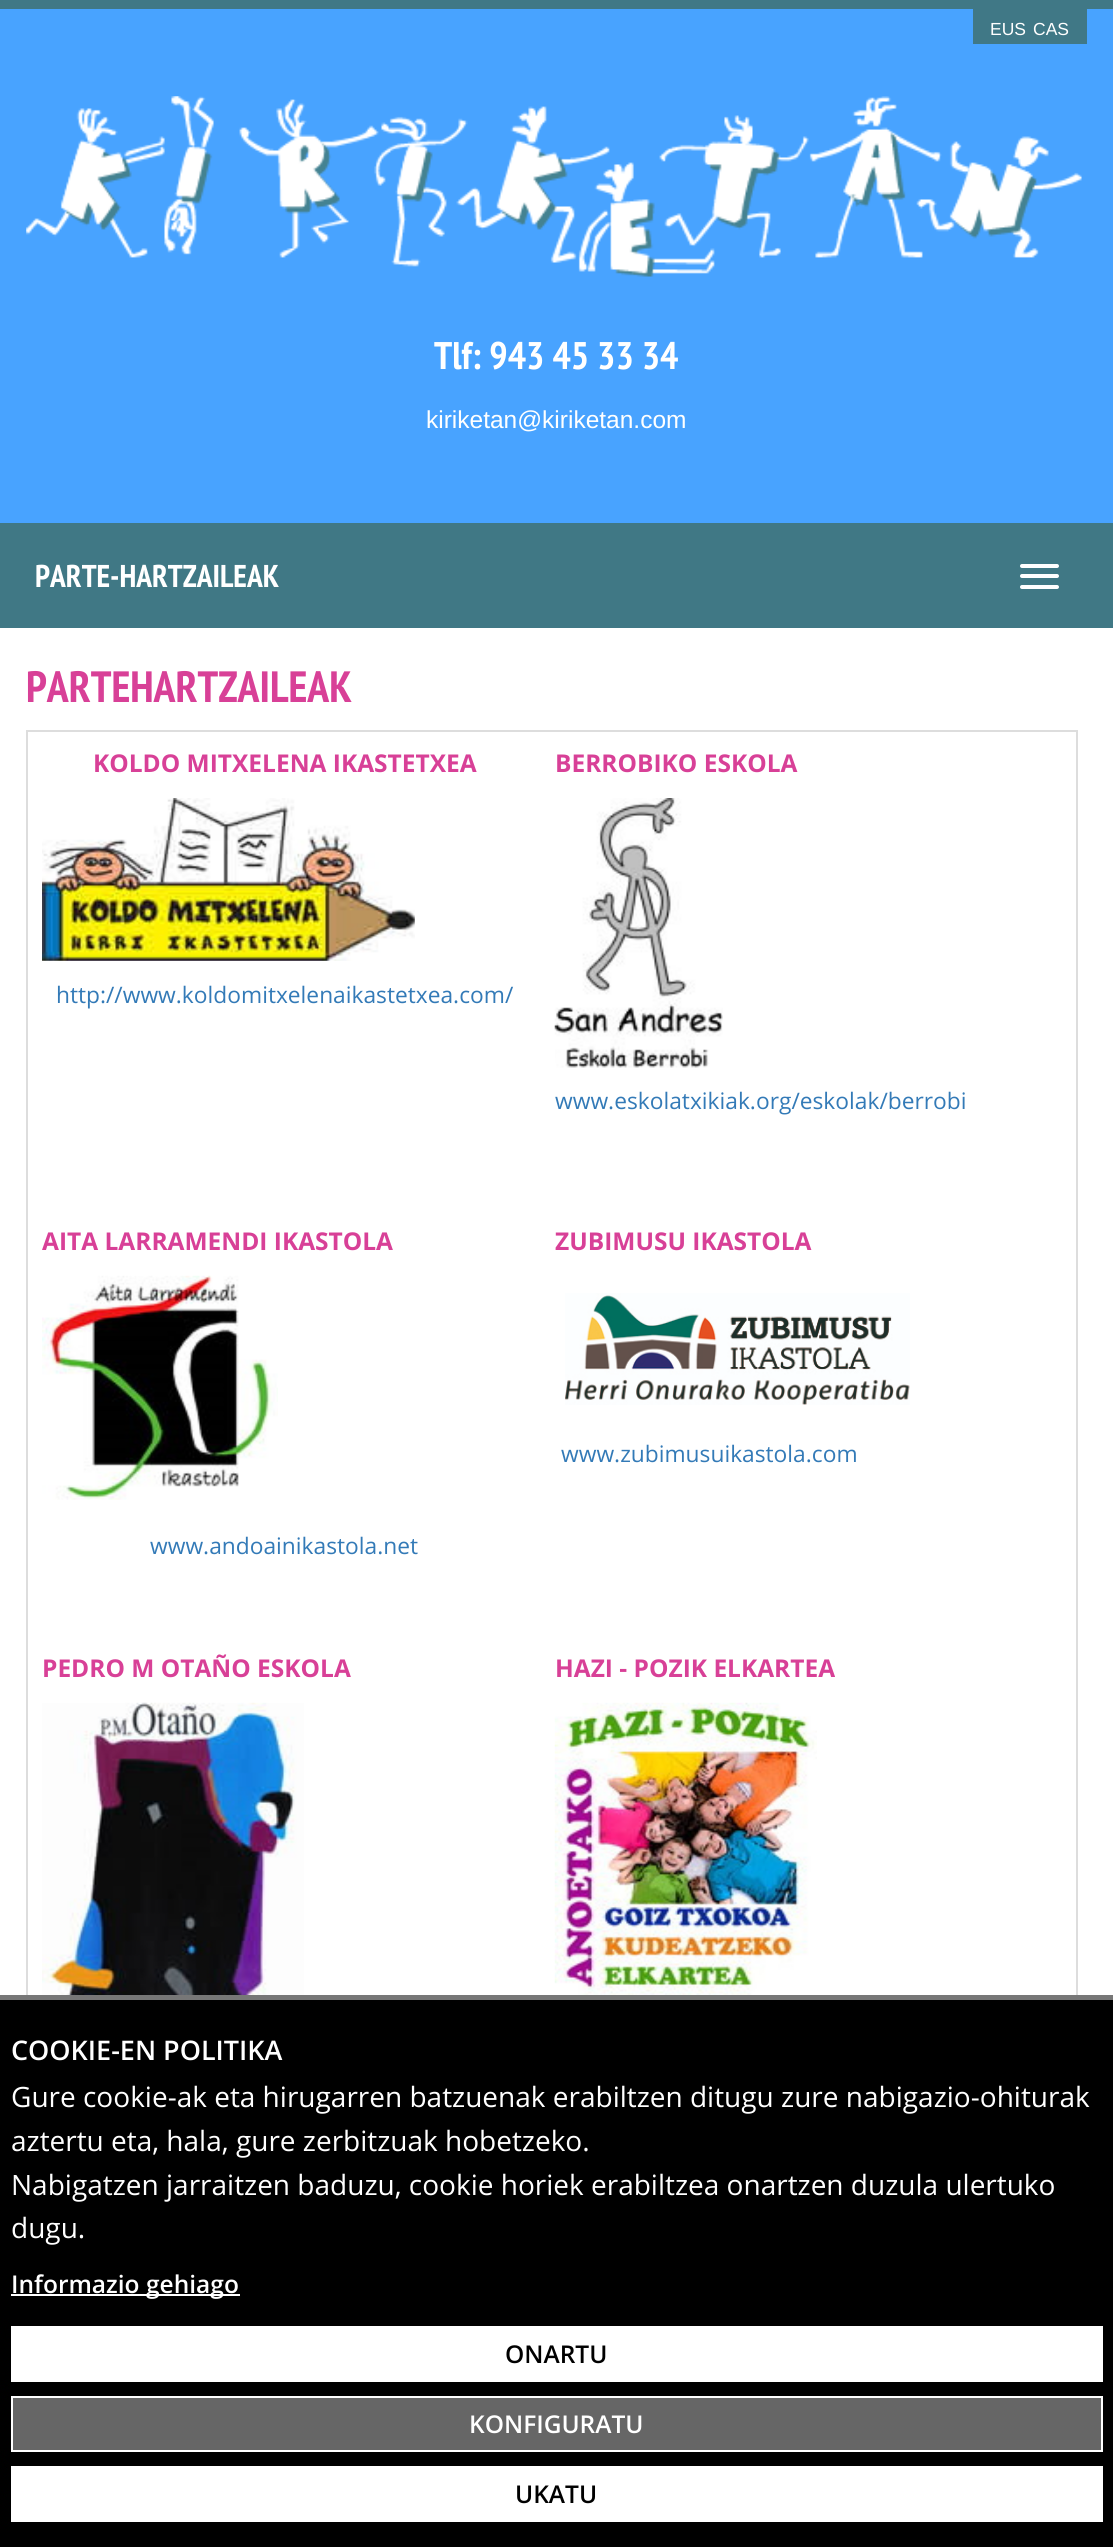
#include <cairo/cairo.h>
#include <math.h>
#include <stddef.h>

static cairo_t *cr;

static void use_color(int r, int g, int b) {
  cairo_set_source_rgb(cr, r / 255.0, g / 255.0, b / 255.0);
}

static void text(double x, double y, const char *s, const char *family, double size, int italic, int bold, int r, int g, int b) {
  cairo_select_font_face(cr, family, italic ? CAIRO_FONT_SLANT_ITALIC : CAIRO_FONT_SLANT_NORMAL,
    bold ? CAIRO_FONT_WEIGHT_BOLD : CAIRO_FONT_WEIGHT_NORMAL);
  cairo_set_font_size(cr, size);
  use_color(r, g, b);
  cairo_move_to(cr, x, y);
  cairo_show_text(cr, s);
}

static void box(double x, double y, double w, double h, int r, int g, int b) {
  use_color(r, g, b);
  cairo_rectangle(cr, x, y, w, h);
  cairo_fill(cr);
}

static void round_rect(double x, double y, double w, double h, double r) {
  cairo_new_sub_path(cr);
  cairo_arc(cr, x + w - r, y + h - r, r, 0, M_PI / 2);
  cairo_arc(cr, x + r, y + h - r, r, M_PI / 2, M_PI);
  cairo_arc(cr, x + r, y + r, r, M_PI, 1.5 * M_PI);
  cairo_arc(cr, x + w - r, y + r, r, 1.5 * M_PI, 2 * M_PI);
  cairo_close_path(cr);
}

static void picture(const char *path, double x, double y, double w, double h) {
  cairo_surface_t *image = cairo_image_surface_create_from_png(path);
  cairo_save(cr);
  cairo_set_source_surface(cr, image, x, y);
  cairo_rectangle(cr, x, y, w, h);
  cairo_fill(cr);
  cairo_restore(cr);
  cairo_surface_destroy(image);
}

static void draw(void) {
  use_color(72, 163, 255);
  cairo_paint(cr);
  box(0, 0, 1113, 9, 64, 120, 134);
  box(973, 9, 114, 35, 64, 120, 134);
  picture("img_01.png", 26, 96, 1056, 181);
  box(0, 523, 1113, 105, 64, 120, 133);
  use_color(255, 255, 255);
  round_rect(1020, 564, 39, 4, 2);
  cairo_fill(cr);
  round_rect(1020, 574, 39, 4, 2);
  cairo_fill(cr);
  round_rect(1020, 585, 39, 4, 2);
  cairo_fill(cr);
  box(0, 628, 1113, 1367, 255, 255, 255);
  cairo_rectangle(cr, 27, 731, 1050, 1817);
  use_color(221, 221, 221);
  cairo_stroke(cr);
  picture("img_02.png", 42, 798, 373, 163);
  picture("img_03.png", 554, 798, 169, 270);
  picture("img_04.png", 42, 1275, 236, 225);
  picture("img_05.png", 565, 1293, 345, 112);
  picture("img_06.png", 42, 1702, 262, 293);
  picture("img_07.png", 554, 1702, 263, 293);
  box(0, 2000, 1113, 547, 0, 0, 0);
  box(0, 1995, 1113, 5, 119, 119, 119);
  box(11, 2294, 229, 2, 255, 255, 255);
  box(11, 2326, 1092, 56, 255, 255, 255);
  use_color(102, 102, 102);
  cairo_rectangle(cr, 12, 2397, 1090, 54);
  cairo_fill_preserve(cr);
  use_color(255, 255, 255);
  cairo_stroke(cr);
  box(11, 2466, 1092, 56, 255, 255, 255);
  text(990, 35, "EUS", "Liberation Sans", 17.5, 0, 0, 255, 255, 255);
  text(1033, 35, "CAS", "Liberation Sans", 17.5, 0, 0, 255, 255, 255);
  text(434, 369, "Tlf: 943 45 33 34", "PT Sans Narrow", 38.5, 0, 1, 255, 255, 255);
  text(426, 428, "kiriketan@kiriketan.com", "Liberation Sans", 24.5, 0, 0, 255, 255, 255);
  text(35, 587, "PARTE-HARTZAILEAK", "PT Sans Narrow", 31.5, 0, 1, 255, 255, 255);
  text(26, 702, "PARTEHARTZAILEAK", "PT Sans Narrow", 43.75, 0, 1, 216, 64, 151);
  text(93, 772, "KOLDO MITXELENA IKASTETXEA", "Open Sans", 24.5, 0, 1, 216, 64, 151);
  text(56, 1003, "http://www.koldomitxelenaikastetxea.com/", "Open Sans", 22.75, 0, 0, 51, 122, 183);
  text(555, 772, "BERROBIKO ESKOLA", "Open Sans", 24.5, 0, 1, 216, 64, 151);
  text(555, 1109, "www.eskolatxikiak.org/eskolak/berrobi", "Open Sans", 22.75, 0, 0, 51, 122, 183);
  text(42, 1250, "AITA LARRAMENDI IKASTOLA", "Open Sans", 24.5, 0, 1, 216, 64, 151);
  text(150, 1554, "www.andoainikastola.net", "Open Sans", 22.75, 0, 0, 51, 122, 183);
  text(555, 1250, "ZUBIMUSU IKASTOLA", "Open Sans", 24.5, 0, 1, 216, 64, 151);
  text(561, 1462, "www.zubimusuikastola.com", "Open Sans", 22.75, 0, 0, 51, 122, 183);
  text(42, 1677, "PEDRO M OTAÑO ESKOLA", "Open Sans", 24.5, 0, 1, 216, 64, 151);
  text(555, 1677, "HAZI - POZIK ELKARTEA", "Open Sans", 24.5, 0, 1, 216, 64, 151);
  text(11, 2060, "COOKIE-EN POLITIKA", "Open Sans SemiBold", 27, 0, 0, 255, 255, 255);
  text(11, 2107, "Gure cookie-ak eta hirugarren batzuenak erabiltzen ditugu zure nabigazio-ohiturak", "Open Sans", 28, 0, 0, 255, 255, 255);
  text(11, 2151, "aztertu eta, hala, gure zerbitzuak hobetzeko.", "Open Sans", 28, 0, 0, 255, 255, 255);
  text(11, 2195, "Nabigatzen jarraitzen baduzu, cookie horiek erabiltzea onartzen duzula ulertuko", "Open Sans", 28, 0, 0, 255, 255, 255);
  text(11, 2238, "dugu.", "Open Sans", 28, 0, 0, 255, 255, 255);
  text(11, 2293, "Informazio gehiago", "Open Sans SemiBold", 24.5, 0, 0, 255, 255, 255);
  text(505, 2363, "ONARTU", "Open Sans SemiBold", 24.5, 0, 0, 0, 0, 0);
  text(469, 2433, "KONFIGURATU", "Open Sans SemiBold", 24.5, 0, 0, 255, 255, 255);
  text(515, 2503, "UKATU", "Open Sans SemiBold", 24.5, 0, 0, 0, 0, 0);
}

int main(void) {
  cairo_surface_t *surface = cairo_image_surface_create(CAIRO_FORMAT_RGB24, 1113, 2547);
  cr = cairo_create(surface);
  cairo_font_options_t *options = cairo_font_options_create();
  cairo_font_options_set_hint_metrics(options, CAIRO_HINT_METRICS_OFF);
  cairo_font_options_set_hint_style(options, CAIRO_HINT_STYLE_NONE);
  cairo_set_font_options(cr, options);
  cairo_set_miter_limit(cr, 4);
  draw();
  cairo_surface_write_to_png(surface, "out.png");
  cairo_font_options_destroy(options);
  cairo_destroy(cr);
  cairo_surface_destroy(surface);
  return 0;
}
